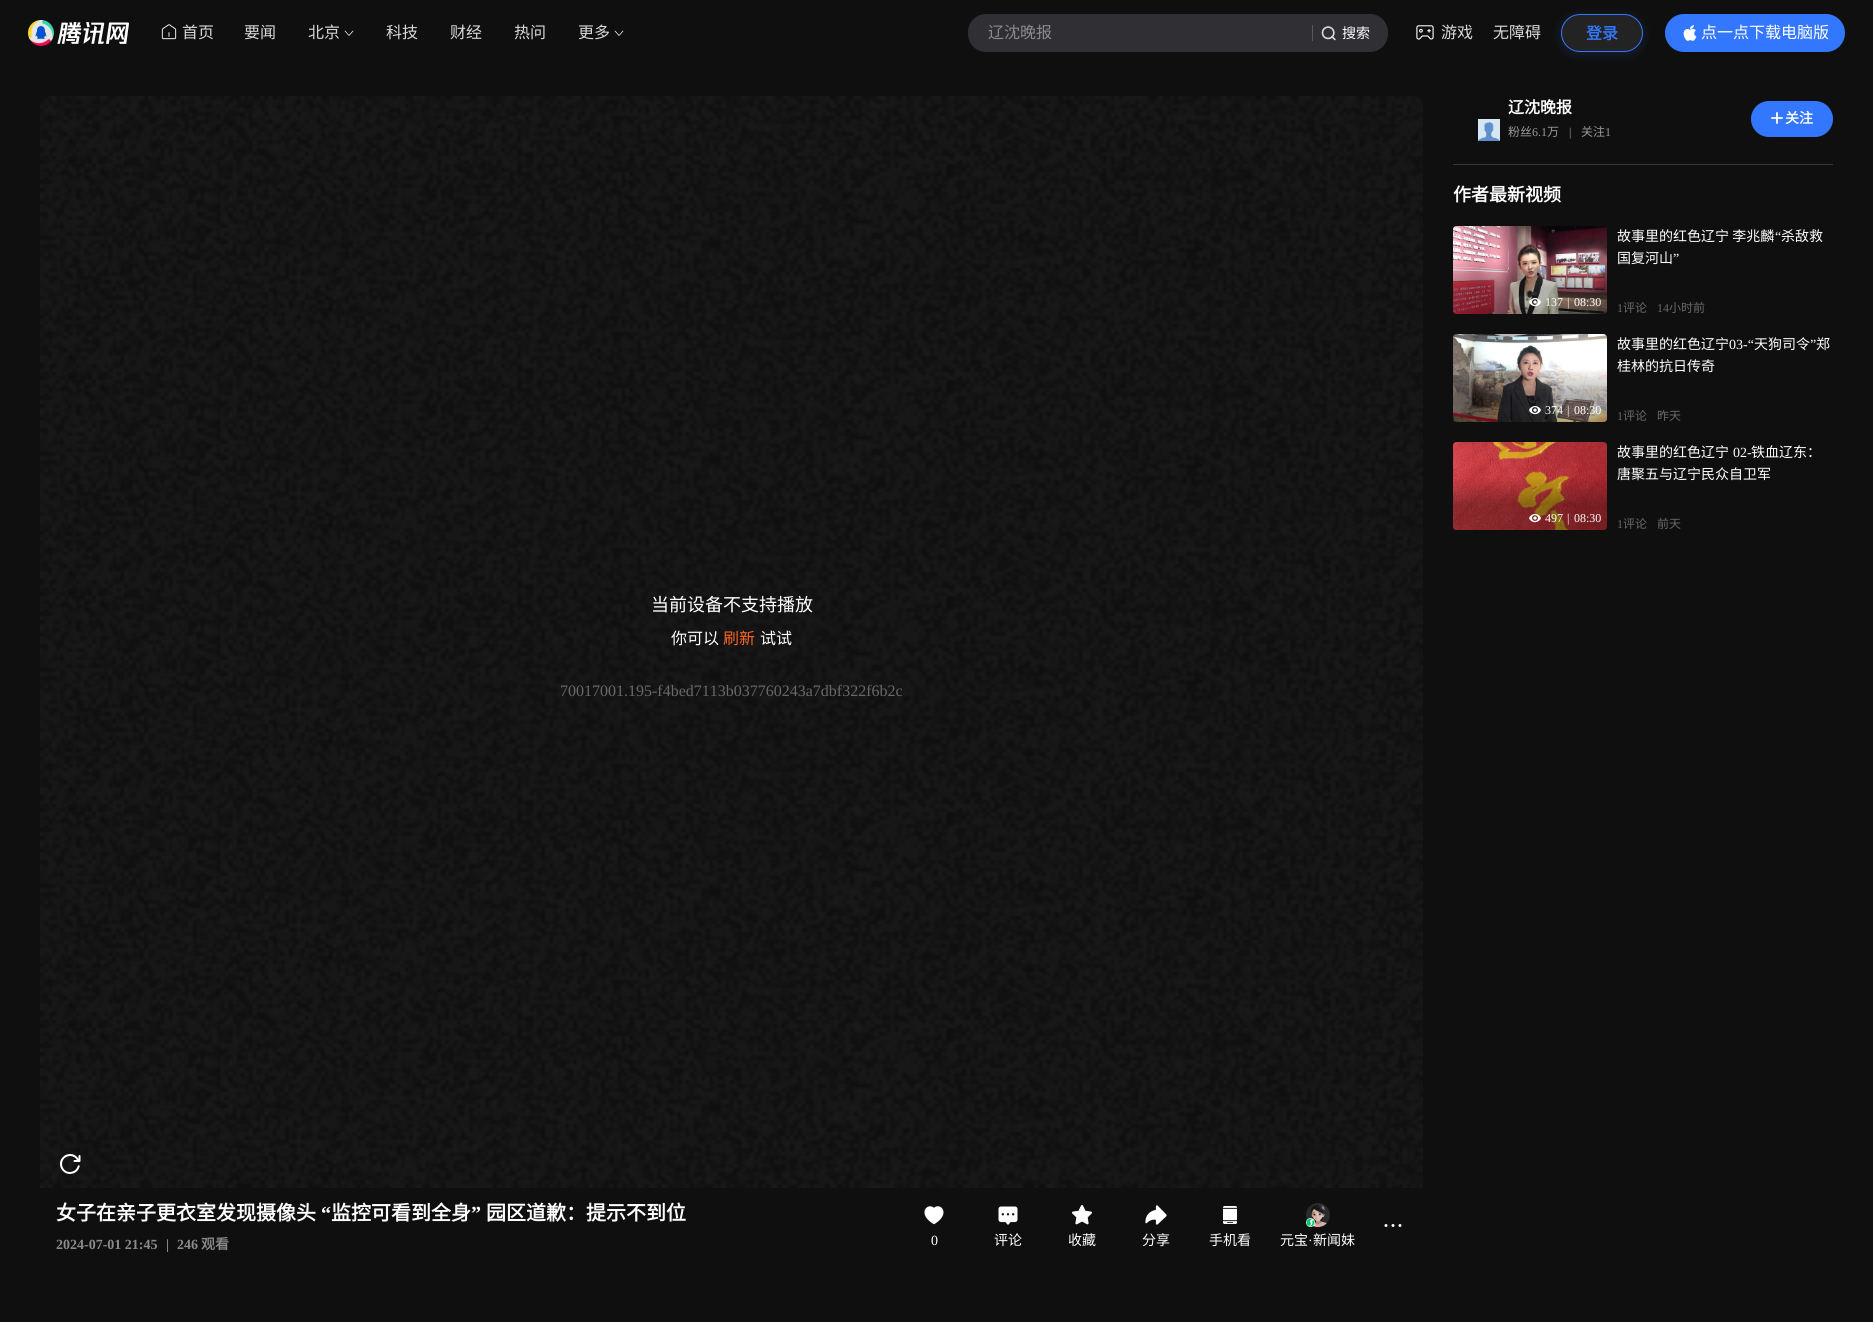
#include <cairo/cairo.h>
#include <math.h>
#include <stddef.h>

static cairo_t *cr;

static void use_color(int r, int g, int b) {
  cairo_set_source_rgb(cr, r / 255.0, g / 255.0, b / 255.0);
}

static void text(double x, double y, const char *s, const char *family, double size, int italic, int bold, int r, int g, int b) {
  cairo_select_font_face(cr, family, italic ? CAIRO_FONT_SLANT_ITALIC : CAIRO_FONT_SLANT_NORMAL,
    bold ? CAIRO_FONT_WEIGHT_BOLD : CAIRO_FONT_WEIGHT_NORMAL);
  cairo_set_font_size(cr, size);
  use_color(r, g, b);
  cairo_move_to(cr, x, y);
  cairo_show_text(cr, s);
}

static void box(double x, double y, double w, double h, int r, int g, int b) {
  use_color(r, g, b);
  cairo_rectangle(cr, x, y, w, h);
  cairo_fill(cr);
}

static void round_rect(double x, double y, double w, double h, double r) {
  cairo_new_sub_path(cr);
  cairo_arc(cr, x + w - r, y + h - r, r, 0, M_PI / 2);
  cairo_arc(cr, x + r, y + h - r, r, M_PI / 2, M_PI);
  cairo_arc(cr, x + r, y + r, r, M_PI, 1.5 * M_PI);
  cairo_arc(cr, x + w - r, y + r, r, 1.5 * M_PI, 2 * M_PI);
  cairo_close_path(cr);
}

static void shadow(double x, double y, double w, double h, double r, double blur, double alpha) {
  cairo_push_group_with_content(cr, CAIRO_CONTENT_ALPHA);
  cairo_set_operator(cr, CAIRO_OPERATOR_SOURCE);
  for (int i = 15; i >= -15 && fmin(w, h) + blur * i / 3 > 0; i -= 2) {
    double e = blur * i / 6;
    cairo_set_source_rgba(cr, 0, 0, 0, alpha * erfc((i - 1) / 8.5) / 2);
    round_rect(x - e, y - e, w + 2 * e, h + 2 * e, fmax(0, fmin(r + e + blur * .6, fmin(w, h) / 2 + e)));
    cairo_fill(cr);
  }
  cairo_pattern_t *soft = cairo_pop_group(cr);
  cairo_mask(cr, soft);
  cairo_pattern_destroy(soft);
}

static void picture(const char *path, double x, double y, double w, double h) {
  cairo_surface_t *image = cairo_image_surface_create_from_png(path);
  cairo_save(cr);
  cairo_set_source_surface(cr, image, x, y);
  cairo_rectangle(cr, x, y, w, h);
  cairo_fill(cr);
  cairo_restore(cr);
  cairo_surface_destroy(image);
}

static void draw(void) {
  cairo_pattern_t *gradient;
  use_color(15, 15, 15);
  cairo_paint(cr);
  picture("img_01.png", 28, 20, 101, 26);
  picture("img_02.png", 161, 24, 16, 16);
  cairo_new_path(cr);
  cairo_move_to(cr, 353, 31);
  cairo_line_to(cr, 349, 35.5);
  cairo_line_to(cr, 345, 31);
  use_color(255, 255, 255);
  cairo_set_line_width(cr, 0.7);
  cairo_set_line_cap(cr, CAIRO_LINE_CAP_ROUND);
  cairo_set_line_join(cr, CAIRO_LINE_JOIN_ROUND);
  cairo_stroke(cr);
  cairo_new_path(cr);
  cairo_move_to(cr, 623, 31);
  cairo_line_to(cr, 619, 35.5);
  cairo_line_to(cr, 615, 31);
  cairo_stroke(cr);
  use_color(47, 47, 52);
  round_rect(968, 14, 420, 38, 18);
  cairo_fill(cr);
  box(1312, 25, 1, 16, 89, 89, 93);
  picture("img_03.png", 1321, 26, 15, 15);
  picture("img_04.png", 1416, 25, 18, 15);
  cairo_save(cr);
  cairo_set_fill_rule(cr, CAIRO_FILL_RULE_EVEN_ODD);
  cairo_new_path(cr);
  cairo_move_to(cr, 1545, 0);
  cairo_line_to(cr, 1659, 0);
  cairo_line_to(cr, 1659, 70);
  cairo_line_to(cr, 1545, 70);
  cairo_close_path(cr);
  cairo_move_to(cr, 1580, 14);
  cairo_line_to(cr, 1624, 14);
  cairo_curve_to(cr, 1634.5, 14, 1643, 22.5, 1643, 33);
  cairo_curve_to(cr, 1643, 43.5, 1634.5, 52, 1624, 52);
  cairo_line_to(cr, 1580, 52);
  cairo_curve_to(cr, 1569.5, 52, 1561, 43.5, 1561, 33);
  cairo_curve_to(cr, 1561, 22.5, 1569.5, 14, 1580, 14);
  cairo_close_path(cr);
  cairo_clip(cr);
  use_color(51, 119, 255);
  shadow(1561, 16, 82, 38, 19, 5, 0.16);
  cairo_restore(cr);
  cairo_set_source_rgba(cr, 0.851, 0.851, 0.851, 0.1);
  round_rect(1561.5, 14.5, 81, 37, 18.5);
  cairo_fill_preserve(cr);
  use_color(51, 119, 255);
  cairo_set_line_width(cr, 1);
  cairo_set_line_cap(cr, CAIRO_LINE_CAP_BUTT);
  cairo_set_line_join(cr, CAIRO_LINE_JOIN_MITER);
  cairo_stroke(cr);
  round_rect(1665, 14, 180, 38, 19);
  cairo_fill(cr);
  picture("img_05.png", 1683, 25, 14, 16);
  picture("img_06.png", 1478, 119, 22, 22);
  round_rect(1751, 101, 82, 36, 18);
  cairo_fill(cr);
  picture("img_07.png", 1771, 112, 12, 12);
  box(1453, 164, 380, 1, 56, 56, 56);
  picture("img_08.png", 1453, 226, 154, 88);
  gradient = cairo_pattern_create_linear(1530, 314, 1530, 226);
  cairo_pattern_add_color_stop_rgba(gradient, 0.3, 0, 0, 0, 0.3);
  cairo_pattern_add_color_stop_rgba(gradient, 0.6, 0, 0, 0, 0);
  cairo_set_source(cr, gradient);
  cairo_pattern_destroy(gradient);
  round_rect(1453, 226, 154, 88, 4);
  cairo_fill(cr);
  picture("img_09.png", 1529, 298, 12, 9);
  picture("img_10.png", 1453, 334, 154, 88);
  gradient = cairo_pattern_create_linear(1530, 422, 1530, 334);
  cairo_pattern_add_color_stop_rgba(gradient, 0.3, 0, 0, 0, 0.3);
  cairo_pattern_add_color_stop_rgba(gradient, 0.6, 0, 0, 0, 0);
  cairo_set_source(cr, gradient);
  cairo_pattern_destroy(gradient);
  round_rect(1453, 334, 154, 88, 4);
  cairo_fill(cr);
  picture("img_11.png", 1529, 406, 12, 9);
  picture("img_12.png", 1453, 442, 154, 88);
  gradient = cairo_pattern_create_linear(1530, 530, 1530, 442);
  cairo_pattern_add_color_stop_rgba(gradient, 0.3, 0, 0, 0, 0.3);
  cairo_pattern_add_color_stop_rgba(gradient, 0.6, 0, 0, 0, 0);
  cairo_set_source(cr, gradient);
  cairo_pattern_destroy(gradient);
  round_rect(1453, 442, 154, 88, 4);
  cairo_fill(cr);
  picture("img_13.png", 1529, 514, 12, 9);
  picture("img_14.png", 40, 96, 1383, 1092);
  picture("img_15.png", 1384, 1224, 18, 3);
  picture("img_16.png", 924, 1206, 20, 19);
  picture("img_17.png", 998, 1206, 20, 19);
  picture("img_18.png", 1072, 1205, 20, 20);
  picture("img_19.png", 1145, 1205, 22, 20);
  picture("img_20.png", 1223, 1206, 14, 18);
  picture("img_21.png", 1306, 1203, 24, 24);
  picture("img_22.png", 1306, 1218, 9, 9);
  text(182, 38, "首页", "Noto Sans CJK SC", 16, 0, 0, 217, 217, 217);
  text(244, 38, "要闻", "Noto Sans CJK SC", 16, 0, 0, 217, 217, 217);
  text(308, 38, "北京", "Noto Sans CJK SC", 16, 0, 0, 217, 217, 217);
  text(386, 38, "科技", "Noto Sans CJK SC", 16, 0, 0, 217, 217, 217);
  text(450, 38, "财经", "Noto Sans CJK SC", 16, 0, 0, 217, 217, 217);
  text(514, 38, "热问", "Noto Sans CJK SC", 16, 0, 0, 217, 217, 217);
  text(578, 38, "更多", "Noto Sans CJK SC", 16, 0, 0, 217, 217, 217);
  text(988, 38, "辽沈晚报", "Noto Sans CJK SC", 16, 0, 0, 139, 139, 139);
  text(1342, 38, "搜索", "Noto Sans CJK SC", 14, 0, 0, 255, 255, 255);
  text(1441, 38, "游戏", "Noto Sans CJK SC", 16, 0, 0, 217, 217, 217);
  text(1493, 38, "无障碍", "Noto Sans CJK SC", 16, 0, 0, 217, 217, 217);
  text(1586, 39, "登录", "Noto Sans CJK SC", 16, 0, 1, 51, 119, 255);
  text(1701, 38, "点一点下载电脑版", "Noto Sans CJK SC", 16, 0, 0, 255, 255, 255);
  text(1508, 113, "辽沈晚报", "Noto Sans CJK SC", 16, 0, 1, 255, 255, 255);
  text(1508, 136, "粉丝", "Noto Sans CJK SC", 12, 0, 0, 153, 153, 153);
  text(1532, 136, "6.1", "Liberation Serif", 12, 0, 0, 153, 153, 153);
  text(1547, 136, "万", "Noto Sans CJK SC", 12, 0, 0, 153, 153, 153);
  text(1569, 136, "|", "Liberation Serif", 12, 0, 0, 153, 153, 153);
  text(1581, 136, "关注", "Noto Sans CJK SC", 12, 0, 0, 153, 153, 153);
  text(1605, 136, "1", "Liberation Serif", 12, 0, 0, 153, 153, 153);
  text(1785, 123, "关注", "Noto Sans CJK SC", 14, 0, 1, 255, 255, 255);
  text(1453, 201, "作者最新视频", "Noto Sans CJK SC", 18, 0, 1, 255, 255, 255);
  text(1545, 306, "137", "Liberation Serif", 12, 0, 0, 255, 255, 255);
  text(1567, 306, "|", "Liberation Serif", 12, 0, 0, 255, 255, 255);
  text(1574, 306, "08:30", "Liberation Serif", 12, 0, 0, 255, 255, 255);
  text(1617, 241, "故事里的红色辽宁 李兆麟", "Noto Sans CJK SC", 14, 0, 0, 255, 255, 255);
  text(1775, 241, "“", "Liberation Serif", 14, 0, 0, 255, 255, 255);
  text(1781, 241, "杀敌救", "Noto Sans CJK SC", 14, 0, 0, 255, 255, 255);
  text(1617, 263, "国复河山", "Noto Sans CJK SC", 14, 0, 0, 255, 255, 255);
  text(1673, 263, "”", "Liberation Serif", 14, 0, 0, 255, 255, 255);
  text(1617, 312, "1", "Liberation Serif", 12, 0, 0, 105, 105, 105);
  text(1623, 312, "评论", "Noto Sans CJK SC", 12, 0, 0, 105, 105, 105);
  text(1657, 312, "14", "Liberation Serif", 12, 0, 0, 105, 105, 105);
  text(1669, 312, "小时前", "Noto Sans CJK SC", 12, 0, 0, 105, 105, 105);
  text(1545, 414, "374", "Liberation Serif", 12, 0, 0, 255, 255, 255);
  text(1567, 414, "|", "Liberation Serif", 12, 0, 0, 255, 255, 255);
  text(1574, 414, "08:30", "Liberation Serif", 12, 0, 0, 255, 255, 255);
  text(1617, 349, "故事里的红色辽宁", "Noto Sans CJK SC", 14, 0, 0, 255, 255, 255);
  text(1729, 349, "03-“", "Liberation Serif", 14, 0, 0, 255, 255, 255);
  text(1754, 349, "天狗司令", "Noto Sans CJK SC", 14, 0, 0, 255, 255, 255);
  text(1810, 349, "”", "Liberation Serif", 14, 0, 0, 255, 255, 255);
  text(1816, 349, "郑", "Noto Sans CJK SC", 14, 0, 0, 255, 255, 255);
  text(1617, 371, "桂林的抗日传奇", "Noto Sans CJK SC", 14, 0, 0, 255, 255, 255);
  text(1617, 420, "1", "Liberation Serif", 12, 0, 0, 105, 105, 105);
  text(1623, 420, "评论", "Noto Sans CJK SC", 12, 0, 0, 105, 105, 105);
  text(1657, 420, "昨天", "Noto Sans CJK SC", 12, 0, 0, 105, 105, 105);
  text(1545, 522, "497", "Liberation Serif", 12, 0, 0, 255, 255, 255);
  text(1567, 522, "|", "Liberation Serif", 12, 0, 0, 255, 255, 255);
  text(1574, 522, "08:30", "Liberation Serif", 12, 0, 0, 255, 255, 255);
  text(1617, 457, "故事里的红色辽宁", "Noto Sans CJK SC", 14, 0, 0, 255, 255, 255);
  text(1733, 457, "02-", "Liberation Serif", 14, 0, 0, 255, 255, 255);
  text(1751, 457, "铁血辽东：", "Noto Sans CJK SC", 14, 0, 0, 255, 255, 255);
  text(1617, 479, "唐聚五与辽宁民众自卫军", "Noto Sans CJK SC", 14, 0, 0, 255, 255, 255);
  text(1617, 528, "1", "Liberation Serif", 12, 0, 0, 105, 105, 105);
  text(1623, 528, "评论", "Noto Sans CJK SC", 12, 0, 0, 105, 105, 105);
  text(1657, 528, "前天", "Noto Sans CJK SC", 12, 0, 0, 105, 105, 105);
  text(651, 611, "当前设备不支持播放", "Noto Sans CJK SC", 18, 0, 0, 255, 255, 255);
  text(671, 644, "你可以", "Noto Sans CJK SC", 16, 0, 0, 255, 255, 255);
  text(723, 644, "刷新", "Noto Sans CJK SC", 16, 0, 0, 252, 101, 38);
  text(760, 644, "试试", "Noto Sans CJK SC", 16, 0, 0, 255, 255, 255);
  text(560, 696, "70017001.195-f4bed7113b037760243a7dbf322f6b2c", "Liberation Serif", 16, 0, 0, 105, 105, 105);
  text(56, 1220, "女子在亲子更衣室发现摄像头", "Noto Sans CJK SC", 20, 0, 1, 255, 255, 255);
  text(321, 1220, "“", "Liberation Serif", 20, 0, 1, 255, 255, 255);
  text(331, 1220, "监控可看到全身", "Noto Sans CJK SC", 20, 0, 1, 255, 255, 255);
  text(471, 1220, "”", "Liberation Serif", 20, 0, 1, 255, 255, 255);
  text(486, 1220, "园区道歉：提示不到位", "Noto Sans CJK SC", 20, 0, 1, 255, 255, 255);
  text(56, 1249, "2024-07-01 21:45", "Liberation Serif", 14, 0, 1, 139, 139, 139);
  text(166, 1249, "|", "Liberation Serif", 14, 0, 1, 139, 139, 139);
  text(177, 1249, "246", "Liberation Serif", 14, 0, 1, 139, 139, 139);
  text(201, 1249, "观看", "Noto Sans CJK SC", 14, 0, 1, 139, 139, 139);
  text(931, 1245, "0", "Liberation Serif", 14, 0, 0, 255, 255, 255);
  text(994, 1245, "评论", "Noto Sans CJK SC", 14, 0, 0, 255, 255, 255);
  text(1068, 1245, "收藏", "Noto Sans CJK SC", 14, 0, 0, 255, 255, 255);
  text(1142, 1245, "分享", "Noto Sans CJK SC", 14, 0, 0, 255, 255, 255);
  text(1209, 1245, "手机看", "Noto Sans CJK SC", 14, 0, 0, 255, 255, 255);
  text(1280, 1245, "元宝", "Noto Sans CJK SC", 14, 0, 0, 255, 255, 255);
  text(1308, 1245, "·", "Liberation Serif", 14, 0, 0, 255, 255, 255);
  text(1313, 1245, "新闻妹", "Noto Sans CJK SC", 14, 0, 0, 255, 255, 255);
}

int main(void) {
  cairo_surface_t *surface = cairo_image_surface_create(CAIRO_FORMAT_RGB24, 1873, 1322);
  cr = cairo_create(surface);
  cairo_font_options_t *options = cairo_font_options_create();
  cairo_font_options_set_hint_metrics(options, CAIRO_HINT_METRICS_OFF);
  cairo_font_options_set_hint_style(options, CAIRO_HINT_STYLE_NONE);
  cairo_set_font_options(cr, options);
  cairo_set_miter_limit(cr, 4);
  draw();
  cairo_surface_write_to_png(surface, "out.png");
  cairo_font_options_destroy(options);
  cairo_destroy(cr);
  cairo_surface_destroy(surface);
  return 0;
}
